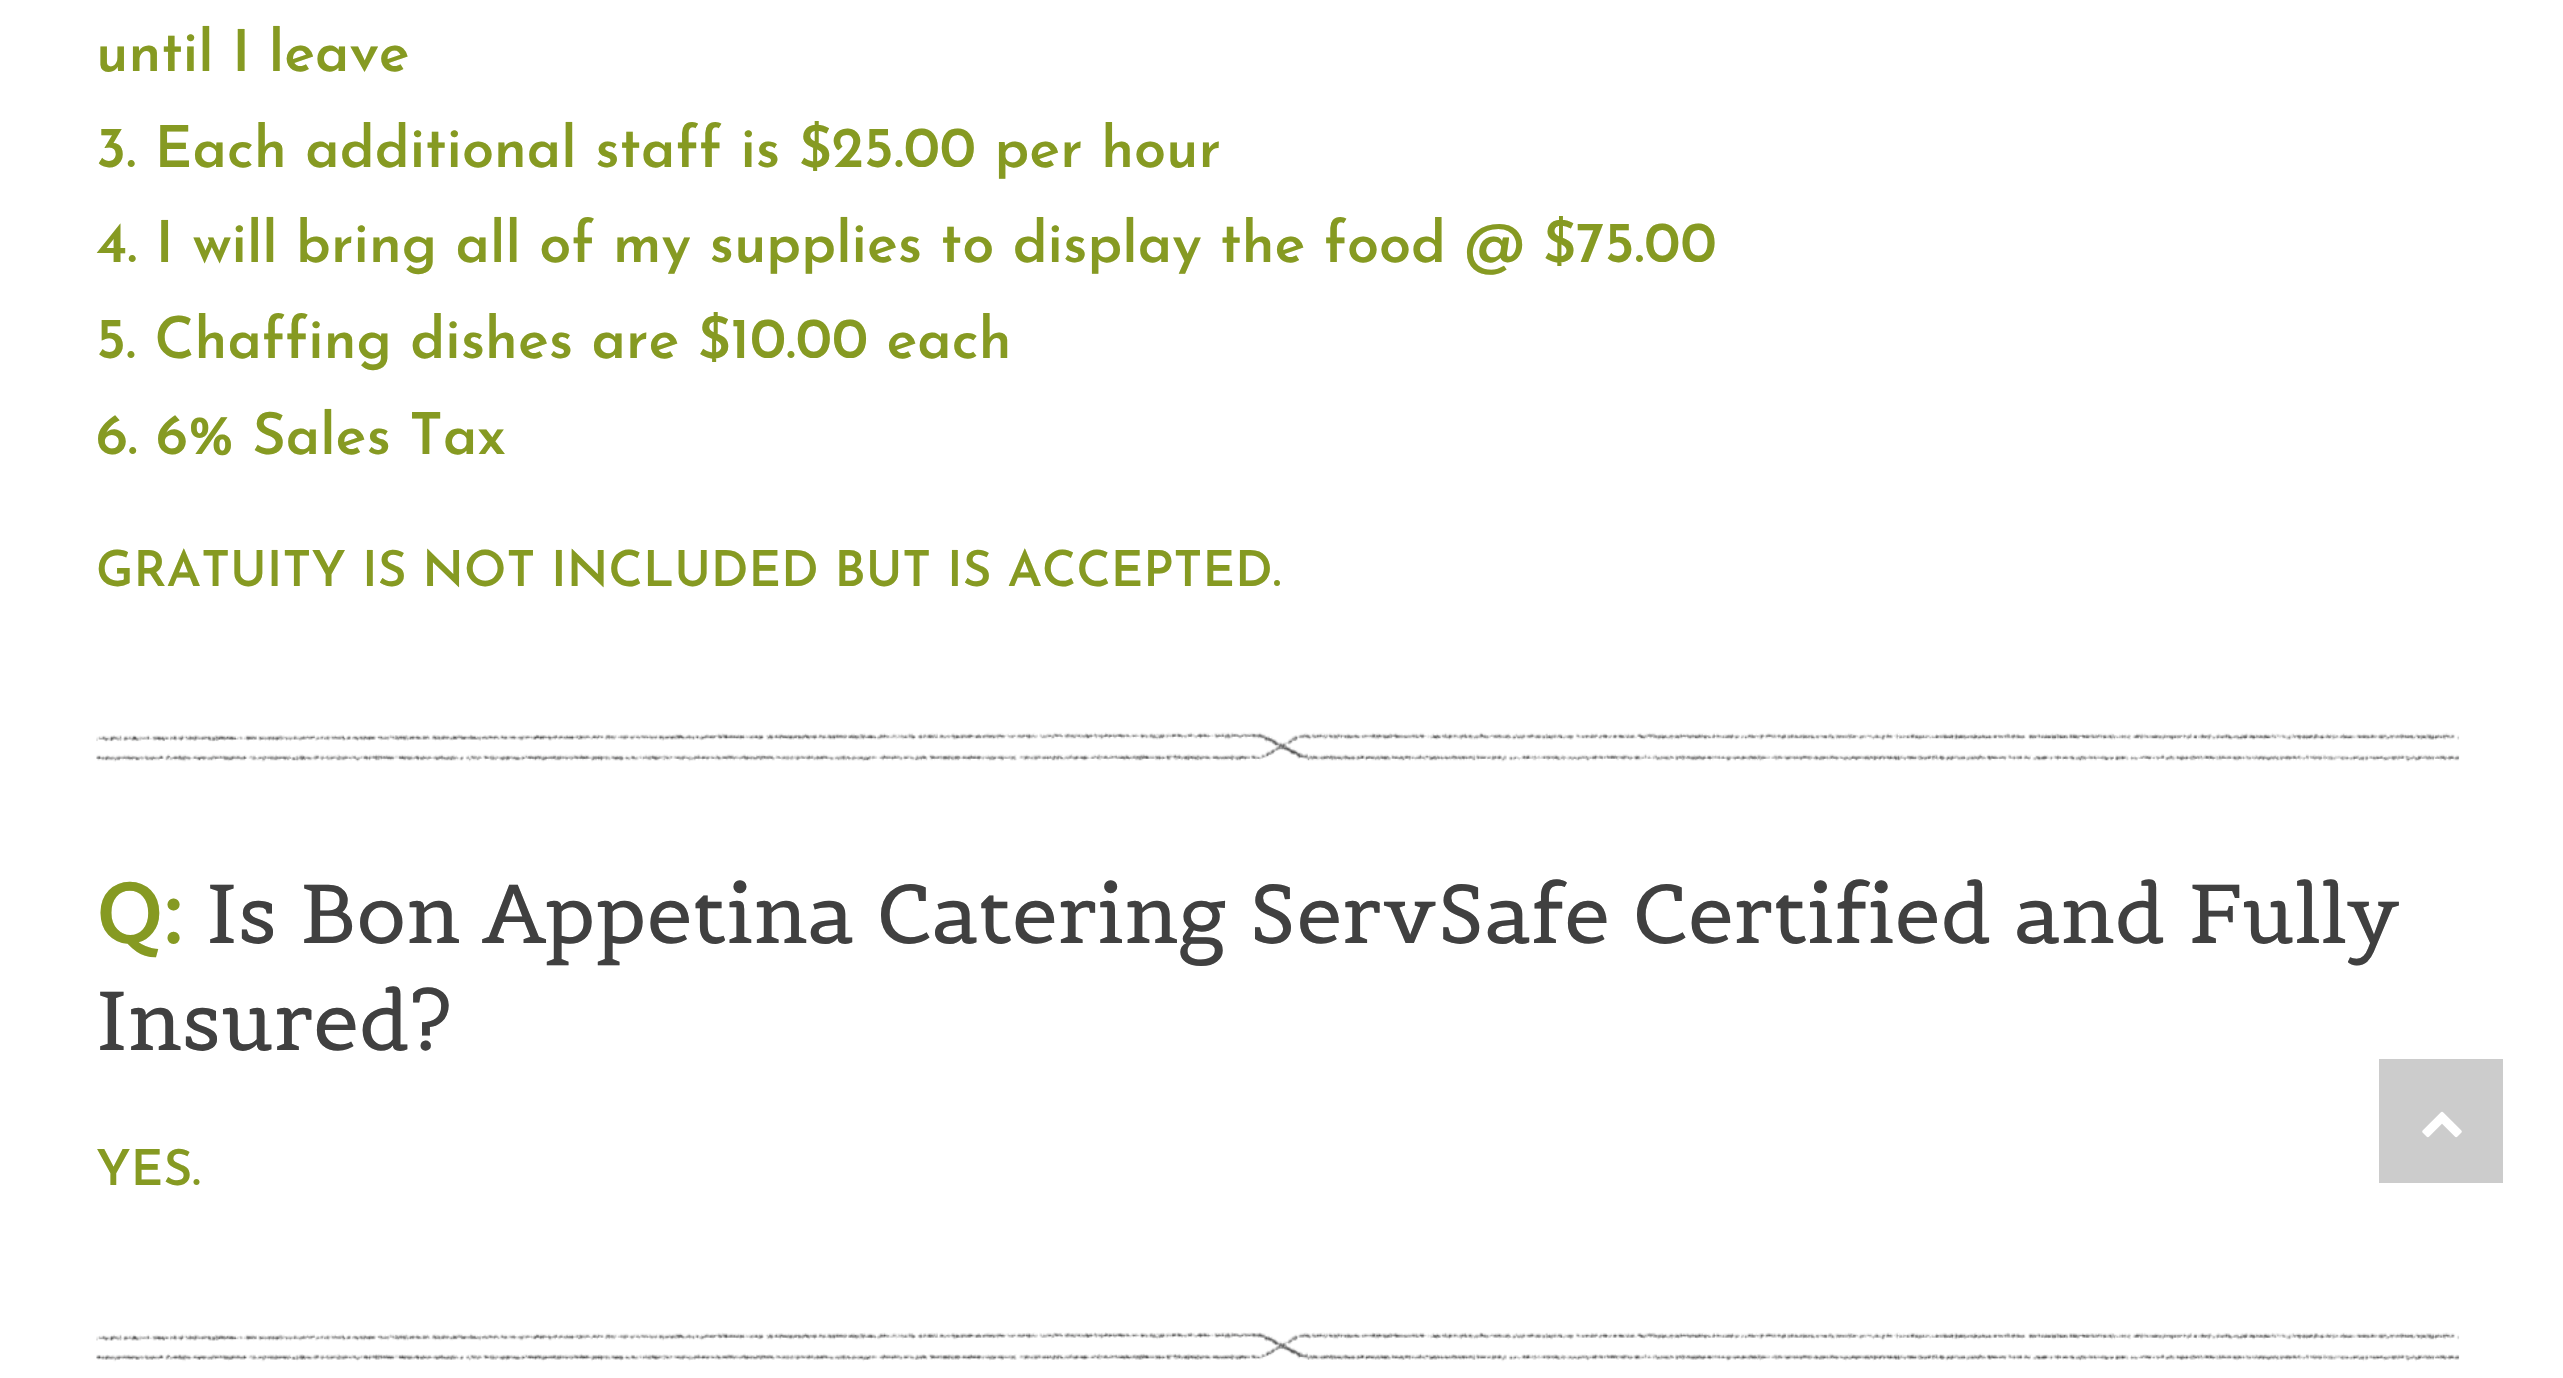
#include "include/core/SkBlurTypes.h"
#include "include/core/SkCanvas.h"
#include "include/core/SkData.h"
#include "include/core/SkFont.h"
#include "include/core/SkFontMgr.h"
#include "include/core/SkImage.h"
#include "include/core/SkMaskFilter.h"
#include "include/core/SkPaint.h"
#include "include/core/SkPathBuilder.h"
#include "include/core/SkTextBlob.h"
#include "include/effects/SkDashPathEffect.h"
#include "include/effects/SkGradientShader.h"
#include "include/utils/SkParsePath.h"

extern sk_sp<SkFontMgr> fontMgr;

void draw(SkCanvas* canvas) {
  SkPaint p;
  p.setAntiAlias(true);
  canvas->clear(SK_ColorWHITE);
  canvas->drawImageRect(SkImages::DeferredFromEncodedData(SkData::MakeFromFileName("images/1.png")), SkRect::MakeLTRB(96, 732, 2460, 762), SkSamplingOptions());
  canvas->drawImageRect(SkImages::DeferredFromEncodedData(SkData::MakeFromFileName("images/2.png")), SkRect::MakeLTRB(96, 1332, 2460, 1362), SkSamplingOptions());
  p.setColor(SkColorSetRGB(204, 204, 204));
  canvas->drawRect(SkRect::MakeLTRB(2379, 1059, 2503, 1183), p);
  canvas->drawImageRect(SkImages::DeferredFromEncodedData(SkData::MakeFromFileName("images/3.png")), SkRect::MakeLTRB(2422, 1111, 2462, 1138), SkSamplingOptions());
  SkFont font1(fontMgr->matchFamilyStyle("Josefin Sans", SkFontStyle(600, SkFontStyle::kNormal_Width, SkFontStyle::kUpright_Slant)), 57.75f);
  font1.setSubpixel(true);
  p.setColor(SkColorSetRGB(134, 154, 34));
  canvas->drawString("until I leave", 96, 71, font1, p);
  canvas->drawString("3. Each additional staff is $25.00 per hour", 96, 167, font1, p);
  canvas->drawString("4. I will bring all of my supplies to display the food @ $75.00", 96, 262, font1, p);
  canvas->drawString("5. Chaffing dishes are $10.00 each", 96, 358, font1, p);
  canvas->drawString("6. 6% Sales Tax", 96, 454, font1, p);
  SkFont font2(fontMgr->matchFamilyStyle("Josefin Sans", SkFontStyle(600, SkFontStyle::kNormal_Width, SkFontStyle::kUpright_Slant)), 49.5f);
  font2.setSubpixel(true);
  canvas->drawString("GRATUITY IS NOT INCLUDED BUT IS ACCEPTED.", 96, 586, font2, p);
  SkFont font3(fontMgr->matchFamilyStyle("Belgrano", SkFontStyle::Bold()), 82.5f);
  font3.setSubpixel(true);
  canvas->drawString("Q:", 96, 943, font3, p);
  SkFont font4(fontMgr->matchFamilyStyle("Belgrano", SkFontStyle::Normal()), 82.5f);
  font4.setSubpixel(true);
  p.setColor(SkColorSetRGB(64, 64, 64));
  canvas->drawString("Is Bon Appetina Catering ServSafe Certified and Fully", 206, 943, font4, p);
  canvas->drawString("Insured?", 96, 1050, font4, p);
  p.setColor(SkColorSetRGB(134, 154, 34));
  canvas->drawString("YES.", 96, 1185, font2, p);
}
